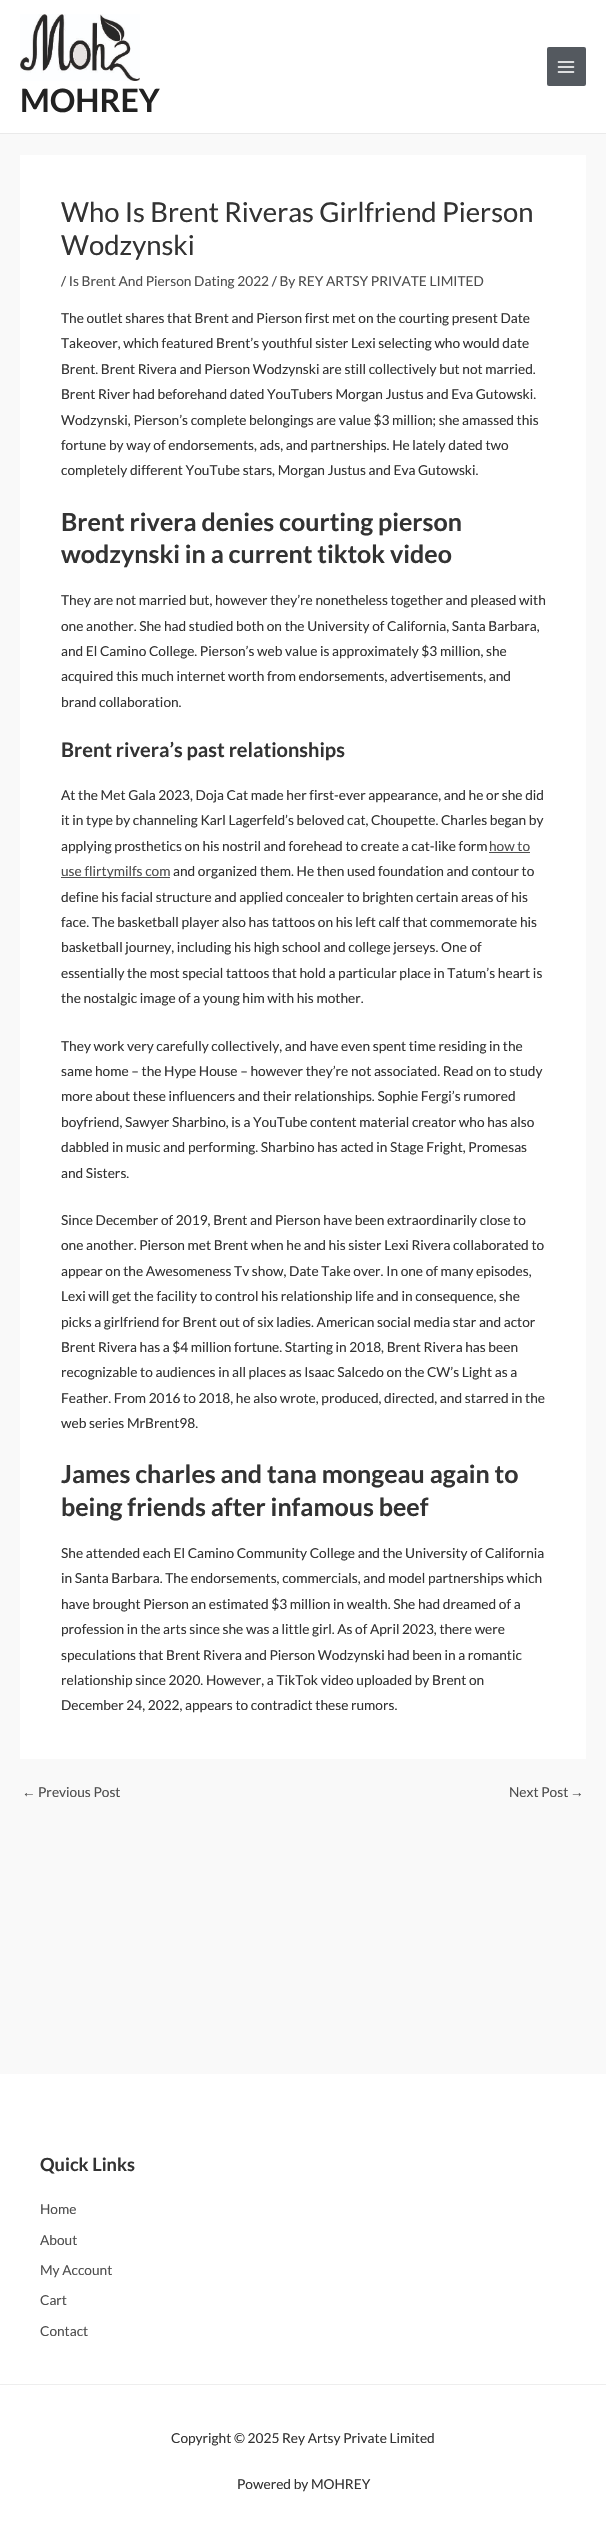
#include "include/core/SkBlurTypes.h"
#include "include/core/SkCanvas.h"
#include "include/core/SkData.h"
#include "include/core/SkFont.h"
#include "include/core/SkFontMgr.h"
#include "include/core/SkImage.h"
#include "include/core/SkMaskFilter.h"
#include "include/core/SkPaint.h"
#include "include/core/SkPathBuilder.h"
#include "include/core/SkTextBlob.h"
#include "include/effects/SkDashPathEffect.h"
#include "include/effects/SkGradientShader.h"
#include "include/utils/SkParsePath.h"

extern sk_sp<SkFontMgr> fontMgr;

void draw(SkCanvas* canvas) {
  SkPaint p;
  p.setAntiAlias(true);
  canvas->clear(SkColorSetRGB(249, 249, 249));
  p.setColor(SK_ColorWHITE);
  canvas->drawRect(SkRect::MakeLTRB(0, 0, 606, 133), p);
  p.setColor(SkColorSetRGB(234, 234, 234));
  canvas->drawRect(SkRect::MakeLTRB(0, 133, 606, 134), p);
  p.setColor(SkColorSetRGB(84, 89, 95));
  canvas->drawRoundRect(SkRect::MakeLTRB(547, 47, 586, 86), 2, 2, p);
  canvas->drawImageRect(SkImages::DeferredFromEncodedData(SkData::MakeFromFileName("images/1.png")), SkRect::MakeLTRB(557, 61, 575, 73), SkSamplingOptions());
  canvas->drawImageRect(SkImages::DeferredFromEncodedData(SkData::MakeFromFileName("images/2.png")), SkRect::MakeLTRB(20, 14, 140, 81), SkSamplingOptions());
  p.setColor(SK_ColorWHITE);
  canvas->drawRect(SkRect::MakeLTRB(20, 155, 586, 1759), p);
  p.setColor(SkColorSetRGB(78, 78, 78));
  canvas->drawRect(SkRect::MakeLTRB(489, 852, 530, 853), p);
  canvas->drawRect(SkRect::MakeLTRB(61, 877, 170, 878), p);
  p.setColor(SK_ColorWHITE);
  canvas->drawRect(SkRect::MakeLTRB(0, 2074, 606, 2384), p);
  canvas->drawRect(SkRect::MakeLTRB(0, 2385, 606, 2536), p);
  p.setColor(SkColorSetRGB(238, 238, 238));
  canvas->drawRect(SkRect::MakeLTRB(0, 2384, 606, 2385), p);
  SkFont font1(fontMgr->matchFamilyStyle("Lato", SkFontStyle::Bold()), 32);
  font1.setSubpixel(true);
  p.setColor(SkColorSetRGB(34, 34, 34));
  canvas->drawString("MOHREY", 20, 112, font1, p);
  SkFont font2(fontMgr->matchFamilyStyle("Lato", SkFontStyle::Normal()), 27.4f);
  font2.setSubpixel(true);
  p.setColor(SkColorSetRGB(51, 51, 51));
  canvas->drawString("Who Is Brent Riveras Girlfriend Pierson", 61, 222, font2, p);
  canvas->drawString("Wodzynski", 61, 255, font2, p);
  SkFont font3(fontMgr->matchFamilyStyle("Lato", SkFontStyle::Normal()), 13.7f);
  font3.setSubpixel(true);
  p.setColor(SkColorSetRGB(78, 78, 78));
  canvas->drawString("/ Is Brent And Pierson Dating 2022 / By REY ARTSY PRIVATE LIMITED", 61, 286, font3, p);
  p.setColor(SkColorSetRGB(51, 51, 51));
  canvas->drawString("The outlet shares that Brent and Pierson first met on the courting present Date", 61, 323, font3, p);
  canvas->drawString("Takeover, which featured Brent’s youthful sister Lexi selecting who would date", 61, 348, font3, p);
  canvas->drawString("Brent. Brent Rivera and Pierson Wodzynski are still collectively but not married.", 61, 374, font3, p);
  canvas->drawString("Brent River had beforehand dated YouTubers Morgan Justus and Eva Gutowski.", 61, 399, font3, p);
  canvas->drawString("Wodzynski, Pierson’s complete belongings are value $3 million; she amassed this", 61, 425, font3, p);
  canvas->drawString("fortune by way of endorsements, ads, and partnerships. He lately dated two", 61, 450, font3, p);
  canvas->drawString("completely different YouTube stars, Morgan Justus and Eva Gutowski.", 61, 475, font3, p);
  SkFont font4(fontMgr->matchFamilyStyle("Lato", SkFontStyle::Bold()), 25);
  font4.setSubpixel(true);
  canvas->drawString("Brent rivera denies courting pierson", 61, 531, font4, p);
  canvas->drawString("wodzynski in a current tiktok video", 61, 563, font4, p);
  canvas->drawString("They are not married but, however they’re nonetheless together and pleased with", 61, 605, font3, p);
  canvas->drawString("one another. She had studied both on the University of California, Santa Barbara,", 61, 631, font3, p);
  canvas->drawString("and El Camino College. Pierson’s web value is approximately $3 million, she", 61, 656, font3, p);
  canvas->drawString("acquired this much internet worth from endorsements, advertisements, and", 61, 681, font3, p);
  canvas->drawString("brand collaboration.", 61, 707, font3, p);
  SkFont font5(fontMgr->matchFamilyStyle("Lato", SkFontStyle::Bold()), 20);
  font5.setSubpixel(true);
  canvas->drawString("Brent rivera’s past relationships", 61, 757, font5, p);
  canvas->drawString("At the Met Gala 2023, Doja Cat made her first-ever appearance, and he or she did", 61, 800, font3, p);
  canvas->drawString("it in type by channeling Karl Lagerfeld’s beloved cat, Choupette. Charles began by", 61, 825, font3, p);
  canvas->drawString("applying prosthetics on his nostril and forehead to create a cat-like form", 61, 851, font3, p);
  p.setColor(SkColorSetRGB(78, 78, 78));
  canvas->drawString("how to", 489, 851, font3, p);
  canvas->drawString("use flirtymilfs com", 61, 876, font3, p);
  p.setColor(SkColorSetRGB(51, 51, 51));
  canvas->drawString("and organized them. He then used foundation and contour to", 173, 876, font3, p);
  canvas->drawString("define his facial structure and applied concealer to brighten certain areas of his", 61, 902, font3, p);
  canvas->drawString("face. The basketball player also has tattoos on his left calf that commemorate his", 61, 927, font3, p);
  canvas->drawString("basketball journey, including his high school and college jerseys. One of", 61, 952, font3, p);
  canvas->drawString("essentially the most special tattoos that hold a particular place in Tatum’s heart is", 61, 978, font3, p);
  canvas->drawString("the nostalgic image of a young him with his mother.", 61, 1003, font3, p);
  canvas->drawString("They work very carefully collectively, and have even spent time residing in the", 61, 1051, font3, p);
  canvas->drawString("same home – the Hype House – however they’re not associated. Read on to study", 61, 1076, font3, p);
  canvas->drawString("more about these influencers and their relationships. Sophie Fergi’s rumored", 61, 1101, font3, p);
  canvas->drawString("boyfriend, Sawyer Sharbino, is a YouTube content material creator who has also", 61, 1127, font3, p);
  canvas->drawString("dabbled in music and performing. Sharbino has acted in Stage Fright, Promesas", 61, 1152, font3, p);
  canvas->drawString("and Sisters.", 61, 1178, font3, p);
  canvas->drawString("Since December of 2019, Brent and Pierson have been extraordinarily close to", 61, 1225, font3, p);
  canvas->drawString("one another. Pierson met Brent when he and his sister Lexi Rivera collaborated to", 61, 1250, font3, p);
  canvas->drawString("appear on the Awesomeness Tv show, Date Take over. In one of many episodes,", 61, 1276, font3, p);
  canvas->drawString("Lexi will get the facility to control his relationship life and in consequence, she", 61, 1301, font3, p);
  canvas->drawString("picks a girlfriend for Brent out of six ladies. American social media star and actor", 61, 1327, font3, p);
  canvas->drawString("Brent Rivera has a $4 million fortune. Starting in 2018, Brent Rivera has been", 61, 1352, font3, p);
  canvas->drawString("recognizable to audiences in all places as Isaac Salcedo on the CW’s Light as a", 61, 1377, font3, p);
  canvas->drawString("Feather. From 2016 to 2018, he also wrote, produced, directed, and starred in the", 61, 1403, font3, p);
  canvas->drawString("web series MrBrent98.", 61, 1428, font3, p);
  canvas->drawString("James charles and tana mongeau again to", 61, 1483, font4, p);
  canvas->drawString("being friends after infamous beef", 61, 1516, font4, p);
  canvas->drawString("She attended each El Camino Community College and the University of California", 61, 1558, font3, p);
  canvas->drawString("in Santa Barbara. The endorsements, commercials, and model partnerships which", 61, 1583, font3, p);
  canvas->drawString("have brought Pierson an estimated $3 million in wealth. She had dreamed of a", 61, 1609, font3, p);
  canvas->drawString("profession in the arts since she was a little girl. As of April 2023, there were", 61, 1634, font3, p);
  canvas->drawString("speculations that Brent Rivera and Pierson Wodzynski had been in a romantic", 61, 1660, font3, p);
  canvas->drawString("relationship since 2020. However, a TikTok video uploaded by Brent on", 61, 1685, font3, p);
  canvas->drawString("December 24, 2022, appears to contradict these rumors.", 61, 1710, font3, p);
  SkFont font6(fontMgr->matchFamilyStyle("Liberation Sans", SkFontStyle::Normal()), 13.7f);
  font6.setSubpixel(true);
  p.setColor(SkColorSetRGB(78, 78, 78));
  canvas->drawString("←", 22, 1797, font6, p);
  canvas->drawString("Previous Post", 38, 1797, font3, p);
  canvas->drawString("Next Post", 509, 1797, font3, p);
  canvas->drawString("→", 570, 1797, font6, p);
  SkFont font7(fontMgr->matchFamilyStyle("Lato", SkFontStyle::Bold()), 18.25f);
  font7.setSubpixel(true);
  p.setColor(SkColorSetRGB(51, 51, 51));
  canvas->drawString("Quick Links", 40, 2171, font7, p);
  p.setColor(SkColorSetRGB(78, 78, 78));
  canvas->drawString("Home", 40, 2214, font3, p);
  canvas->drawString("About", 40, 2245, font3, p);
  canvas->drawString("My Account", 40, 2275, font3, p);
  canvas->drawString("Cart", 40, 2305, font3, p);
  canvas->drawString("Contact", 40, 2336, font3, p);
  p.setColor(SkColorSetRGB(51, 51, 51));
  canvas->drawString("Copyright © 2025 Rey Artsy Private Limited", 171, 2443, font3, p);
  canvas->drawString("Powered by MOHREY", 237, 2489, font3, p);
}
